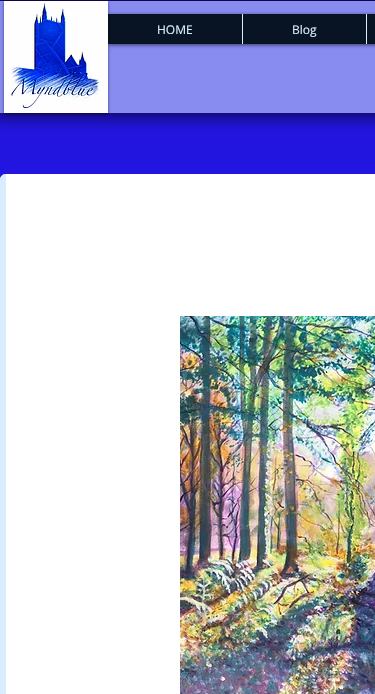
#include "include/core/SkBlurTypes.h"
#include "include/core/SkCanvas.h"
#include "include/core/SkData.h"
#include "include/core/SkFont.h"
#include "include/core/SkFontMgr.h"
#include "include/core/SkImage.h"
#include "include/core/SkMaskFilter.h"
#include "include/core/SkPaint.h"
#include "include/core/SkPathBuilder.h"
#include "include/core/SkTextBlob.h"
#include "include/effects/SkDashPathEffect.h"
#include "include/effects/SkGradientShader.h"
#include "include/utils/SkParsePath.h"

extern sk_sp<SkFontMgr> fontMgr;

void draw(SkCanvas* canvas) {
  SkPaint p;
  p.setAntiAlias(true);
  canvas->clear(SkColorSetRGB(35, 21, 224));
  p.setColor(SkColorSetARGB(179, 0, 0, 0));
  p.setMaskFilter(SkMaskFilter::MakeBlur(kNormal_SkBlurStyle, 9));
  canvas->drawRect(SkRect::MakeLTRB(-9, -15, 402, 115), p);
  p.setMaskFilter(nullptr);
  p.setColor(SkColorSetRGB(136, 140, 241));
  canvas->drawRect(SkRect::MakeLTRB(0, 1, 375, 113), p);
  p.setColor(SkColorSetARGB(153, 0, 0, 0));
  p.setMaskFilter(SkMaskFilter::MakeBlur(kNormal_SkBlurStyle, 2));
  canvas->drawRect(SkRect::MakeLTRB(108, 15, 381, 45), p);
  p.setMaskFilter(nullptr);
  p.setColor(SkColorSetRGB(8, 20, 35));
  canvas->drawRect(SkRect::MakeLTRB(108, 14, 375, 44), p);
  p.setColor(SkColorSetARGB(128, 0, 0, 0));
  p.setMaskFilter(SkMaskFilter::MakeBlur(kNormal_SkBlurStyle, 1.5f));
  canvas->drawRect(SkRect::MakeLTRB(4, 2, 108, 114), p);
  p.setMaskFilter(nullptr);
  canvas->drawImageRect(SkImages::DeferredFromEncodedData(SkData::MakeFromFileName("images/1.png")), SkRect::MakeLTRB(4, 1, 108, 113), SkSamplingOptions());
  p.setColor(SkColorSetRGB(218, 237, 255));
  canvas->drawRect(SkRect::MakeLTRB(242, 14, 243, 44), p);
  canvas->drawRect(SkRect::MakeLTRB(366, 14, 367, 44), p);
  canvas->drawRoundRect(SkRect::MakeLTRB(0.5f, 174.5f, 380.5f, 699.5f), 4.5f, 4.5f, p);
  p.setStyle(SkPaint::kStroke_Style);
  p.setStrokeWidth(1);
  canvas->drawRoundRect(SkRect::MakeLTRB(0.5f, 174.5f, 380.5f, 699.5f), 4.5f, 4.5f, p);
  p.setStyle(SkPaint::kFill_Style);
  p.setColor(SK_ColorWHITE);
  canvas->drawRect(SkRect::MakeLTRB(6, 174, 375, 694), p);
  canvas->drawImageRect(SkImages::DeferredFromEncodedData(SkData::MakeFromFileName("images/2.png")), SkRect::MakeLTRB(180, 316, 375, 694), SkSamplingOptions());
  SkFont font1(fontMgr->matchFamilyStyle("Open Sans", SkFontStyle::Normal()), 12);
  font1.setSubpixel(true);
  p.setColor(SkColorSetRGB(218, 237, 255));
  canvas->drawString("HOME", 157, 34, font1, p);
  canvas->drawString("Blog", 292, 34, font1, p);
}
